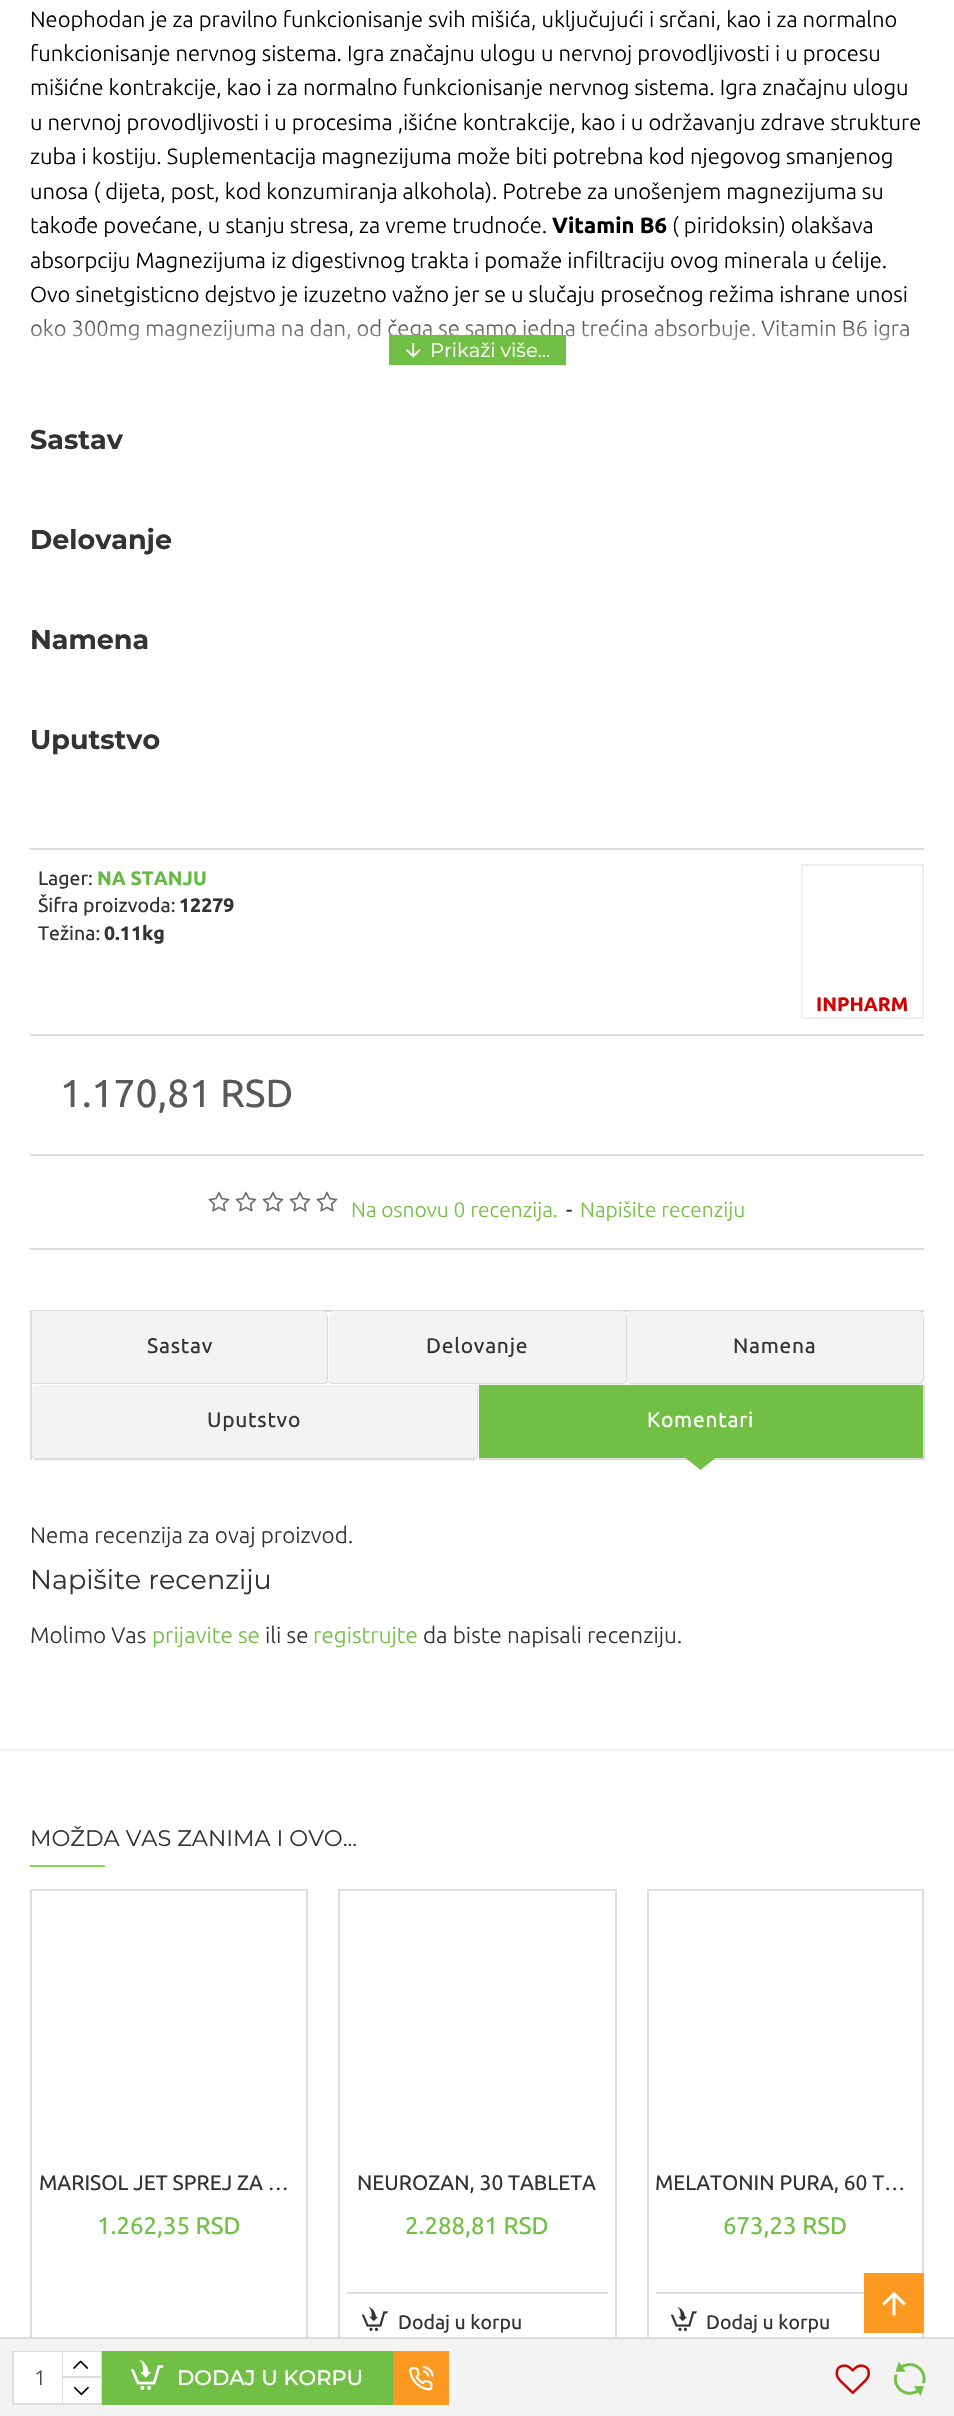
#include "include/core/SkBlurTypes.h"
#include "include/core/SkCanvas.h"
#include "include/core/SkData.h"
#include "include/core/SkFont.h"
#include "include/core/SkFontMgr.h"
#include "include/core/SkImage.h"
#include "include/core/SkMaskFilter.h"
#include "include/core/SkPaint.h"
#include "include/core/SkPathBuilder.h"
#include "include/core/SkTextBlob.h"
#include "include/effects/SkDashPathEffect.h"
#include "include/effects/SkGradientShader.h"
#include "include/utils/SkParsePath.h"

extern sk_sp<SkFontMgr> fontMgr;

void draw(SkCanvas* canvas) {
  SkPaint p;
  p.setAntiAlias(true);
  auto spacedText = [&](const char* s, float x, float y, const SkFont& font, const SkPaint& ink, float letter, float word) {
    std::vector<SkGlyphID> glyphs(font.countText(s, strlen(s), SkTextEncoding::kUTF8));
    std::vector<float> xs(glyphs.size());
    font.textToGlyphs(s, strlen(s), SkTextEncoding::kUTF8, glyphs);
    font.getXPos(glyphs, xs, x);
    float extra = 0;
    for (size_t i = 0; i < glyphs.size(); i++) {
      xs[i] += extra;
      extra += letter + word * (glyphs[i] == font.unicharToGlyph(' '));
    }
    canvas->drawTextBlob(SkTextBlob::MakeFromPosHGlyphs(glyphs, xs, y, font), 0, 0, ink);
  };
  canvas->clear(SK_ColorWHITE);
  p.setColor(SkColorSetRGB(221, 221, 221));
  canvas->drawRect(SkRect::MakeLTRB(30, 848, 924, 850), p);
  canvas->drawRect(SkRect::MakeLTRB(30, 1034, 924, 1036), p);
  p.setStyle(SkPaint::kStroke_Style);
  p.setStrokeWidth(2);
  p.setColor(SkColorSetRGB(238, 238, 238));
  canvas->drawRect(SkRect::MakeLTRB(802, 865, 923, 1018), p);
  p.setStyle(SkPaint::kFill_Style);
  p.setColor(SkColorSetRGB(221, 221, 221));
  canvas->drawRect(SkRect::MakeLTRB(30, 1154, 924, 1156), p);
  canvas->drawRect(SkRect::MakeLTRB(30, 1248, 924, 1250), p);
  canvas->drawImageRect(SkImages::DeferredFromEncodedData(SkData::MakeFromFileName("images/2.png")), SkRect::MakeLTRB(208, 1191, 230, 1212), SkSamplingOptions());
  canvas->drawImageRect(SkImages::DeferredFromEncodedData(SkData::MakeFromFileName("images/2.png")), SkRect::MakeLTRB(235, 1191, 257, 1212), SkSamplingOptions());
  canvas->drawImageRect(SkImages::DeferredFromEncodedData(SkData::MakeFromFileName("images/2.png")), SkRect::MakeLTRB(262, 1191, 284, 1212), SkSamplingOptions());
  canvas->drawImageRect(SkImages::DeferredFromEncodedData(SkData::MakeFromFileName("images/2.png")), SkRect::MakeLTRB(289, 1191, 311, 1212), SkSamplingOptions());
  canvas->drawImageRect(SkImages::DeferredFromEncodedData(SkData::MakeFromFileName("images/2.png")), SkRect::MakeLTRB(316, 1191, 338, 1212), SkSamplingOptions());
  p.setStyle(SkPaint::kStroke_Style);
  canvas->drawRect(SkRect::MakeLTRB(31, 1890, 307, 2387), p);
  canvas->drawRect(SkRect::MakeLTRB(339, 1890, 616, 2387), p);
  canvas->drawRect(SkRect::MakeLTRB(648, 1890, 923, 2387), p);
  p.setStyle(SkPaint::kFill_Style);
  p.setColor(SkColorSetRGB(243, 243, 243));
  canvas->drawRect(SkRect::MakeLTRB(0, 2339, 954, 2416), p);
  p.setColor(SkColorSetRGB(221, 221, 221));
  canvas->drawRect(SkRect::MakeLTRB(0, 2337, 954, 2339), p);
  p.setStyle(SkPaint::kStroke_Style);
  canvas->drawRect(SkRect::MakeLTRB(13, 2352, 101, 2404), p);
  p.setStyle(SkPaint::kFill_Style);
  p.setColor(SK_ColorWHITE);
  canvas->drawRect(SkRect::MakeLTRB(14, 2352, 62, 2403), p);
  p.setColor(SkColorSetRGB(221, 221, 221));
  canvas->drawRect(SkRect::MakeLTRB(62, 2352, 63, 2403), p);
  p.setColor(SK_ColorWHITE);
  canvas->drawRect(SkRect::MakeLTRB(63, 2352, 101, 2376), p);
  p.setColor(SkColorSetRGB(221, 221, 221));
  canvas->drawRect(SkRect::MakeLTRB(63, 2376, 101, 2378), p);
  canvas->drawImageRect(SkImages::DeferredFromEncodedData(SkData::MakeFromFileName("images/3.png")), SkRect::MakeLTRB(73, 2360, 89, 2369), SkSamplingOptions());
  p.setColor(SK_ColorWHITE);
  canvas->drawRect(SkRect::MakeLTRB(63, 2378, 101, 2403), p);
  canvas->drawImageRect(SkImages::DeferredFromEncodedData(SkData::MakeFromFileName("images/4.png")), SkRect::MakeLTRB(73, 2386, 89, 2396), SkSamplingOptions());
  p.setColor(SkColorSetRGB(113, 191, 68));
  canvas->drawRect(SkRect::MakeLTRB(102, 2351, 393, 2405), p);
  canvas->drawImageRect(SkImages::DeferredFromEncodedData(SkData::MakeFromFileName("images/5.png")), SkRect::MakeLTRB(130, 2360, 164, 2390), SkSamplingOptions());
  p.setColor(SkColorSetRGB(252, 153, 33));
  canvas->drawRect(SkRect::MakeLTRB(393, 2351, 449, 2405), p);
  canvas->drawImageRect(SkImages::DeferredFromEncodedData(SkData::MakeFromFileName("images/6.png")), SkRect::MakeLTRB(409, 2366, 434, 2391), SkSamplingOptions());
  canvas->drawImageRect(SkImages::DeferredFromEncodedData(SkData::MakeFromFileName("images/7.png")), SkRect::MakeLTRB(835, 2364, 870, 2394), SkSamplingOptions());
  canvas->drawImageRect(SkImages::DeferredFromEncodedData(SkData::MakeFromFileName("images/8.png")), SkRect::MakeLTRB(893, 2361, 926, 2396), SkSamplingOptions());
  p.setColor(SkColorSetRGB(221, 221, 221));
  canvas->drawRect(SkRect::MakeLTRB(30, 1310, 924, 1312), p);
  canvas->drawRect(SkRect::MakeLTRB(30, 1310, 32, 1460), p);
  p.setColor(SkColorSetARGB(13, 0, 0, 0));
  p.setMaskFilter(SkMaskFilter::MakeBlur(kNormal_SkBlurStyle, 1));
  canvas->drawRoundRect(SkRect::MakeLTRB(32, 1313, 329, 1386), 6, 6, p);
  p.setMaskFilter(nullptr);
  p.setColor(SK_ColorWHITE);
  canvas->drawPath(SkPathBuilder().moveTo(32, 1311).lineTo(322, 1311).cubicTo(325, 1311, 327, 1314, 327, 1317).lineTo(327, 1378).cubicTo(327, 1381, 325, 1383, 322, 1383).lineTo(32, 1383).close().detach(), p);
  p.setColor(SkColorSetRGB(221, 221, 221));
  canvas->drawPath(SkPathBuilder(SkPathFillType::kEvenOdd).moveTo(32, 1311).lineTo(322, 1311).cubicTo(326, 1311, 328, 1314, 328, 1317).lineTo(328, 1378).cubicTo(328, 1382, 326, 1384, 322, 1384).lineTo(32, 1384).close().moveTo(32, 1311).lineTo(322, 1311).cubicTo(325, 1311, 327, 1314, 327, 1317).lineTo(327, 1378).cubicTo(327, 1381, 325, 1383, 322, 1383).lineTo(32, 1383).close().detach(), p);
  p.setColor(SkColorSetARGB(13, 0, 0, 0));
  p.setMaskFilter(SkMaskFilter::MakeBlur(kNormal_SkBlurStyle, 1));
  canvas->drawRoundRect(SkRect::MakeLTRB(329, 1313, 627, 1386), 6, 6, p);
  p.setMaskFilter(nullptr);
  p.setColor(SK_ColorWHITE);
  canvas->drawPath(SkPathBuilder().moveTo(334, 1311).lineTo(621, 1311).cubicTo(623, 1311, 626, 1314, 626, 1317).lineTo(626, 1378).cubicTo(626, 1381, 623, 1383, 621, 1383).lineTo(334, 1383).cubicTo(331, 1383, 328, 1381, 328, 1378).lineTo(328, 1317).cubicTo(328, 1314, 331, 1311, 334, 1311).close().detach(), p);
  p.setColor(SkColorSetRGB(221, 221, 221));
  canvas->drawPath(SkPathBuilder(SkPathFillType::kEvenOdd).moveTo(334, 1311).lineTo(621, 1311).cubicTo(624, 1311, 627, 1314, 627, 1317).lineTo(627, 1378).cubicTo(627, 1382, 624, 1384, 621, 1384).lineTo(334, 1384).cubicTo(331, 1384, 328, 1382, 328, 1378).lineTo(328, 1317).cubicTo(328, 1314, 331, 1311, 334, 1311).close().moveTo(334, 1311).lineTo(621, 1311).cubicTo(623, 1311, 626, 1314, 626, 1317).lineTo(626, 1378).cubicTo(626, 1381, 623, 1383, 621, 1383).lineTo(334, 1383).cubicTo(331, 1383, 328, 1381, 328, 1378).lineTo(328, 1317).cubicTo(328, 1314, 331, 1311, 334, 1311).close().detach(), p);
  p.setColor(SkColorSetARGB(13, 0, 0, 0));
  p.setMaskFilter(SkMaskFilter::MakeBlur(kNormal_SkBlurStyle, 1));
  canvas->drawRoundRect(SkRect::MakeLTRB(32, 1386, 479, 1461), 6, 6, p);
  p.setMaskFilter(nullptr);
  p.setColor(SkColorSetRGB(243, 243, 243));
  canvas->drawPath(SkPathBuilder().moveTo(32, 1311).lineTo(321, 1311).cubicTo(324.5f, 1311, 327, 1313.5f, 327, 1317).lineTo(327, 1377).cubicTo(327, 1380.5f, 324.5f, 1383, 321, 1383).lineTo(32, 1383).close().detach(), p);
  p.setColor(SkColorSetARGB(13, 0, 0, 0));
  p.setMaskFilter(SkMaskFilter::MakeBlur(kNormal_SkBlurStyle, 1));
  canvas->drawRoundRect(SkRect::MakeLTRB(627, 1313, 924, 1386), 6, 6, p);
  p.setMaskFilter(nullptr);
  p.setColor(SkColorSetRGB(243, 243, 243));
  canvas->drawRoundRect(SkRect::MakeLTRB(329, 1311, 626, 1383), 6, 6, p);
  p.setColor(SK_ColorWHITE);
  canvas->drawPath(SkPathBuilder().moveTo(633, 1311).lineTo(918, 1311).cubicTo(920, 1311, 922, 1314, 922, 1317).lineTo(922, 1378).cubicTo(922, 1381, 920, 1383, 918, 1383).lineTo(633, 1383).cubicTo(630, 1383, 627, 1381, 627, 1378).lineTo(627, 1317).cubicTo(627, 1314, 630, 1311, 633, 1311).close().detach(), p);
  p.setColor(SkColorSetRGB(221, 221, 221));
  canvas->drawPath(SkPathBuilder(SkPathFillType::kEvenOdd).moveTo(633, 1311).lineTo(918, 1311).cubicTo(921, 1311, 924, 1314, 924, 1317).lineTo(924, 1378).cubicTo(924, 1382, 921, 1384, 918, 1384).lineTo(633, 1384).cubicTo(630, 1384, 627, 1382, 627, 1378).lineTo(627, 1317).cubicTo(627, 1314, 630, 1311, 633, 1311).close().moveTo(633, 1311).lineTo(918, 1311).cubicTo(920, 1311, 922, 1314, 922, 1317).lineTo(922, 1378).cubicTo(922, 1381, 920, 1383, 918, 1383).lineTo(633, 1383).cubicTo(630, 1383, 627, 1381, 627, 1378).lineTo(627, 1317).cubicTo(627, 1314, 630, 1311, 633, 1311).close().detach(), p);
  p.setColor(SkColorSetRGB(243, 243, 243));
  canvas->drawRoundRect(SkRect::MakeLTRB(627, 1311, 923, 1383), 6, 6, p);
  p.setColor(SK_ColorWHITE);
  canvas->drawPath(SkPathBuilder().moveTo(38, 1384).lineTo(472, 1384).cubicTo(475, 1384, 477, 1387, 477, 1390).lineTo(477, 1454).cubicTo(477, 1456, 475, 1458, 472, 1458).lineTo(38, 1458).cubicTo(34, 1458, 32, 1456, 32, 1454).lineTo(32, 1390).cubicTo(32, 1387, 34, 1384, 38, 1384).close().detach(), p);
  p.setColor(SkColorSetRGB(221, 221, 221));
  canvas->drawPath(SkPathBuilder(SkPathFillType::kEvenOdd).moveTo(38, 1384).lineTo(472, 1384).cubicTo(476, 1384, 478, 1387, 478, 1390).lineTo(478, 1454).cubicTo(478, 1457, 476, 1460, 472, 1460).lineTo(38, 1460).cubicTo(34, 1460, 32, 1457, 32, 1454).lineTo(32, 1390).cubicTo(32, 1387, 34, 1384, 38, 1384).close().moveTo(38, 1384).lineTo(472, 1384).cubicTo(475, 1384, 477, 1387, 477, 1390).lineTo(477, 1454).cubicTo(477, 1456, 475, 1458, 472, 1458).lineTo(38, 1458).cubicTo(34, 1458, 32, 1456, 32, 1454).lineTo(32, 1390).cubicTo(32, 1387, 34, 1384, 38, 1384).close().detach(), p);
  p.setColor(SkColorSetRGB(243, 243, 243));
  canvas->drawRoundRect(SkRect::MakeLTRB(32, 1385, 477, 1458), 6, 6, p);
  p.setColor(SkColorSetRGB(221, 221, 221));
  canvas->drawRect(SkRect::MakeLTRB(923, 1385, 925, 1460), p);
  canvas->drawRect(SkRect::MakeLTRB(479, 1458, 924, 1460), p);
  p.setColor(SkColorSetRGB(113, 191, 68));
  canvas->drawRect(SkRect::MakeLTRB(479, 1385, 923, 1458), p);
  canvas->drawPath(SkPathBuilder().moveTo(685.5f, 1458).lineTo(715.5f, 1458).lineTo(700.5f, 1470).close().detach(), p);
  p.setColor(SkColorSetRGB(243, 243, 243));
  canvas->drawRect(SkRect::MakeLTRB(0, 1749, 954, 1751), p);
  p.setColor(SkColorSetRGB(132, 218, 83));
  canvas->drawRect(SkRect::MakeLTRB(30, 1865, 105, 1867), p);
  p.setColor(SkColorSetRGB(221, 221, 221));
  canvas->drawRect(SkRect::MakeLTRB(347, 2292, 608, 2294), p);
  canvas->drawImageRect(SkImages::DeferredFromEncodedData(SkData::MakeFromFileName("images/9.png")), SkRect::MakeLTRB(361, 2307, 388, 2331), SkSamplingOptions());
  canvas->drawRect(SkRect::MakeLTRB(656, 2292, 864, 2294), p);
  canvas->drawImageRect(SkImages::DeferredFromEncodedData(SkData::MakeFromFileName("images/9.png")), SkRect::MakeLTRB(670, 2307, 697, 2331), SkSamplingOptions());
  p.setColor(SkColorSetRGB(252, 153, 33));
  canvas->drawRect(SkRect::MakeLTRB(864, 2273, 924, 2333), p);
  canvas->drawImageRect(SkImages::DeferredFromEncodedData(SkData::MakeFromFileName("images/10.png")), SkRect::MakeLTRB(882, 2291, 906, 2316), SkSamplingOptions());
  SkFont font1(fontMgr->matchFamilyStyle("Ubuntu", SkFontStyle(300, SkFontStyle::kNormal_Width, SkFontStyle::kUpright_Slant)), 22);
  font1.setSubpixel(true);
  p.setColor(SK_ColorBLACK);
  canvas->drawString("Neophodan je za pravilno funkcionisanje svih mišića, uključujući i srčani, kao i za normalno", 30, 27, font1, p);
  canvas->drawString("funkcionisanje nervnog sistema. Igra značajnu ulogu u nervnoj provodljivosti i u procesu", 30, 61, font1, p);
  canvas->drawString("mišićne kontrakcije, kao i za normalno funkcionisanje nervnog sistema. Igra značajnu ulogu", 30, 95, font1, p);
  canvas->drawString("u nervnoj provodljivosti i u procesima ,išićne kontrakcije, kao i u održavanju zdrave strukture", 30, 130, font1, p);
  canvas->drawString("zuba i kostiju. Suplementacija magnezijuma može biti potrebna kod njegovog smanjenog", 30, 164, font1, p);
  canvas->drawString("unosa ( dijeta, post, kod konzumiranja alkohola). Potrebe za unošenjem magnezijuma su", 30, 199, font1, p);
  canvas->drawString("takođe povećane, u stanju stresa, za vreme trudnoće.", 30, 233, font1, p);
  SkFont font2(fontMgr->matchFamilyStyle("Ubuntu", SkFontStyle::Bold()), 22);
  font2.setSubpixel(true);
  canvas->drawString("Vitamin B6", 552, 233, font2, p);
  canvas->drawString("( piridoksin) olakšava", 672, 233, font1, p);
  canvas->drawString("absorpciju Magnezijuma iz digestivnog trakta i pomaže infiltraciju ovog minerala u ćelije.", 30, 268, font1, p);
  canvas->drawString("Ovo sinetgisticno dejstvo je izuzetno važno jer se u slučaju prosečnog režima ishrane unosi", 30, 302, font1, p);
  canvas->drawString("oko 300mg magnezijuma na dan, od čega se samo jedna trećina absorbuje. Vitamin B6 igra", 30, 336, font1, p);
  {
    const SkColor colors[] = {SkColorSetARGB(0, 255, 255, 255), SK_ColorWHITE};
    const float stops[] = {0, 1};
    const SkPoint ends[] = {{477, 304}, {477, 365}};
    p.setShader(SkGradientShader::MakeLinear(ends, colors, stops, 2, SkTileMode::kClamp));
    p.setAlpha(255);
  }
  canvas->drawRect(SkRect::MakeLTRB(31, 305, 908, 341), p);
  p.setShader(nullptr);
  p.setColor(SkColorSetRGB(113, 191, 68));
  canvas->drawRect(SkRect::MakeLTRB(389, 335, 566, 365), p);
  canvas->drawImageRect(SkImages::DeferredFromEncodedData(SkData::MakeFromFileName("images/1.png")), SkRect::MakeLTRB(406, 343, 421, 358), SkSamplingOptions());
  SkFont font3(fontMgr->matchFamilyStyle("Montserrat", SkFontStyle::Normal()), 19.5f);
  font3.setSubpixel(true);
  p.setColor(SK_ColorWHITE);
  canvas->drawString("Prikaži više...", 430, 357, font3, p);
  SkFont font4(fontMgr->matchFamilyStyle("Montserrat", SkFontStyle::Bold()), 27);
  font4.setSubpixel(true);
  p.setColor(SkColorSetRGB(51, 51, 51));
  canvas->drawString("Sastav", 30, 449, font4, p);
  canvas->drawString("Delovanje", 30, 549, font4, p);
  canvas->drawString("Namena", 30, 649, font4, p);
  canvas->drawString("Uputstvo", 30, 749, font4, p);
  SkFont font5(fontMgr->matchFamilyStyle("Ubuntu", SkFontStyle::Normal()), 19.5f);
  font5.setSubpixel(true);
  canvas->drawString("Lager:", 38, 885, font5, p);
  SkFont font6(fontMgr->matchFamilyStyle("Ubuntu", SkFontStyle::Bold()), 19.5f);
  font6.setSubpixel(true);
  p.setColor(SkColorSetRGB(100, 187, 67));
  canvas->drawString("NA STANJU", 97, 885, font6, p);
  p.setColor(SkColorSetRGB(51, 51, 51));
  canvas->drawString("Šifra proizvoda:", 38, 912, font5, p);
  canvas->drawString("12279", 179, 912, font6, p);
  canvas->drawString("Težina:", 38, 940, font5, p);
  canvas->drawString("0.11kg", 104, 940, font6, p);
  p.setColor(SkColorSetRGB(210, 0, 0));
  canvas->drawString("INPHARM", 816, 1011, font6, p);
  SkFont font7(fontMgr->matchFamilyStyle("Ubuntu", SkFontStyle::Normal()), 39);
  font7.setSubpixel(true);
  p.setColor(SkColorSetRGB(88, 88, 90));
  canvas->drawString("1.170,81 RSD", 60, 1107, font7, p);
  SkFont font8(fontMgr->matchFamilyStyle("Ubuntu", SkFontStyle(300, SkFontStyle::kNormal_Width, SkFontStyle::kUpright_Slant)), 21);
  font8.setSubpixel(true);
  p.setColor(SkColorSetRGB(113, 191, 68));
  canvas->drawString("Na osnovu 0 recenzija.", 351, 1217, font8, p);
  SkFont font9(fontMgr->matchFamilyStyle("Ubuntu", SkFontStyle::Normal()), 21);
  font9.setSubpixel(true);
  p.setColor(SkColorSetRGB(51, 51, 51));
  canvas->drawString("-", 566, 1217, font9, p);
  p.setColor(SkColorSetRGB(113, 191, 68));
  canvas->drawString("Napišite recenziju", 580, 1217, font8, p);
  p.setColor(SkColorSetRGB(58, 71, 84));
  canvas->drawString("1", 34, 2385, font8, p);
  SkFont font10(fontMgr->matchFamilyStyle("Montserrat", SkFontStyle(500, SkFontStyle::kNormal_Width, SkFontStyle::kUpright_Slant)), 21);
  font10.setSubpixel(true);
  p.setColor(SK_ColorWHITE);
  canvas->drawString("DODAJ U KORPU", 177, 2385, font10, p);
  p.setColor(SkColorSetRGB(51, 51, 51));
  spacedText("Sastav", 147, 1353, font9, p, 0.75f, 0);
  spacedText("Delovanje", 426, 1353, font9, p, 0.75f, 0);
  spacedText("Namena", 733, 1353, font9, p, 0.75f, 0);
  spacedText("Uputstvo", 207, 1427, font9, p, 0.75f, 0);
  p.setColor(SK_ColorWHITE);
  spacedText("Komentari", 647, 1427, font9, p, 0.75f, 0);
  SkFont font11(fontMgr->matchFamilyStyle("Ubuntu", SkFontStyle(300, SkFontStyle::kNormal_Width, SkFontStyle::kUpright_Slant)), 22.5f);
  font11.setSubpixel(true);
  p.setColor(SkColorSetRGB(51, 51, 51));
  canvas->drawString("Nema recenzija za ovaj proizvod.", 30, 1543, font11, p);
  SkFont font12(fontMgr->matchFamilyStyle("Montserrat", SkFontStyle::Normal()), 27);
  font12.setSubpixel(true);
  canvas->drawString("Napišite recenziju", 30, 1589, font12, p);
  canvas->drawString("Molimo Vas", 30, 1643, font11, p);
  p.setColor(SkColorSetRGB(113, 191, 68));
  canvas->drawString("prijavite se", 152, 1643, font11, p);
  p.setColor(SkColorSetRGB(51, 51, 51));
  canvas->drawString("ili se", 265, 1643, font11, p);
  p.setColor(SkColorSetRGB(113, 191, 68));
  canvas->drawString("registrujte", 313, 1643, font11, p);
  p.setColor(SkColorSetRGB(51, 51, 51));
  canvas->drawString("da biste napisali recenziju.", 423, 1643, font11, p);
  SkFont font13(fontMgr->matchFamilyStyle("Montserrat", SkFontStyle::Normal()), 22.5f);
  font13.setSubpixel(true);
  canvas->drawString("MOŽDA VAS ZANIMA I OVO...", 30, 1846, font13, p);
  canvas->drawString("MARISOL JET SPREJ ZA …", 39, 2190, font9, p);
  SkFont font14(fontMgr->matchFamilyStyle("Ubuntu", SkFontStyle::Normal()), 24);
  font14.setSubpixel(true);
  p.setColor(SkColorSetRGB(113, 191, 68));
  canvas->drawString("1.262,35 RSD", 97, 2234, font14, p);
  p.setColor(SkColorSetRGB(51, 51, 51));
  canvas->drawString("NEUROZAN, 30 TABLETA", 357, 2190, font9, p);
  p.setColor(SkColorSetRGB(113, 191, 68));
  canvas->drawString("2.288,81 RSD", 405, 2234, font14, p);
  p.setColor(SkColorSetRGB(51, 51, 51));
  canvas->drawString("Dodaj u korpu", 398, 2329, font5, p);
  canvas->drawString("MELATONIN PURA, 60 T…", 655, 2190, font9, p);
  p.setColor(SkColorSetRGB(113, 191, 68));
  canvas->drawString("673,23 RSD", 723, 2234, font14, p);
  p.setColor(SkColorSetRGB(51, 51, 51));
  canvas->drawString("Dodaj u korpu", 706, 2329, font5, p);
}
